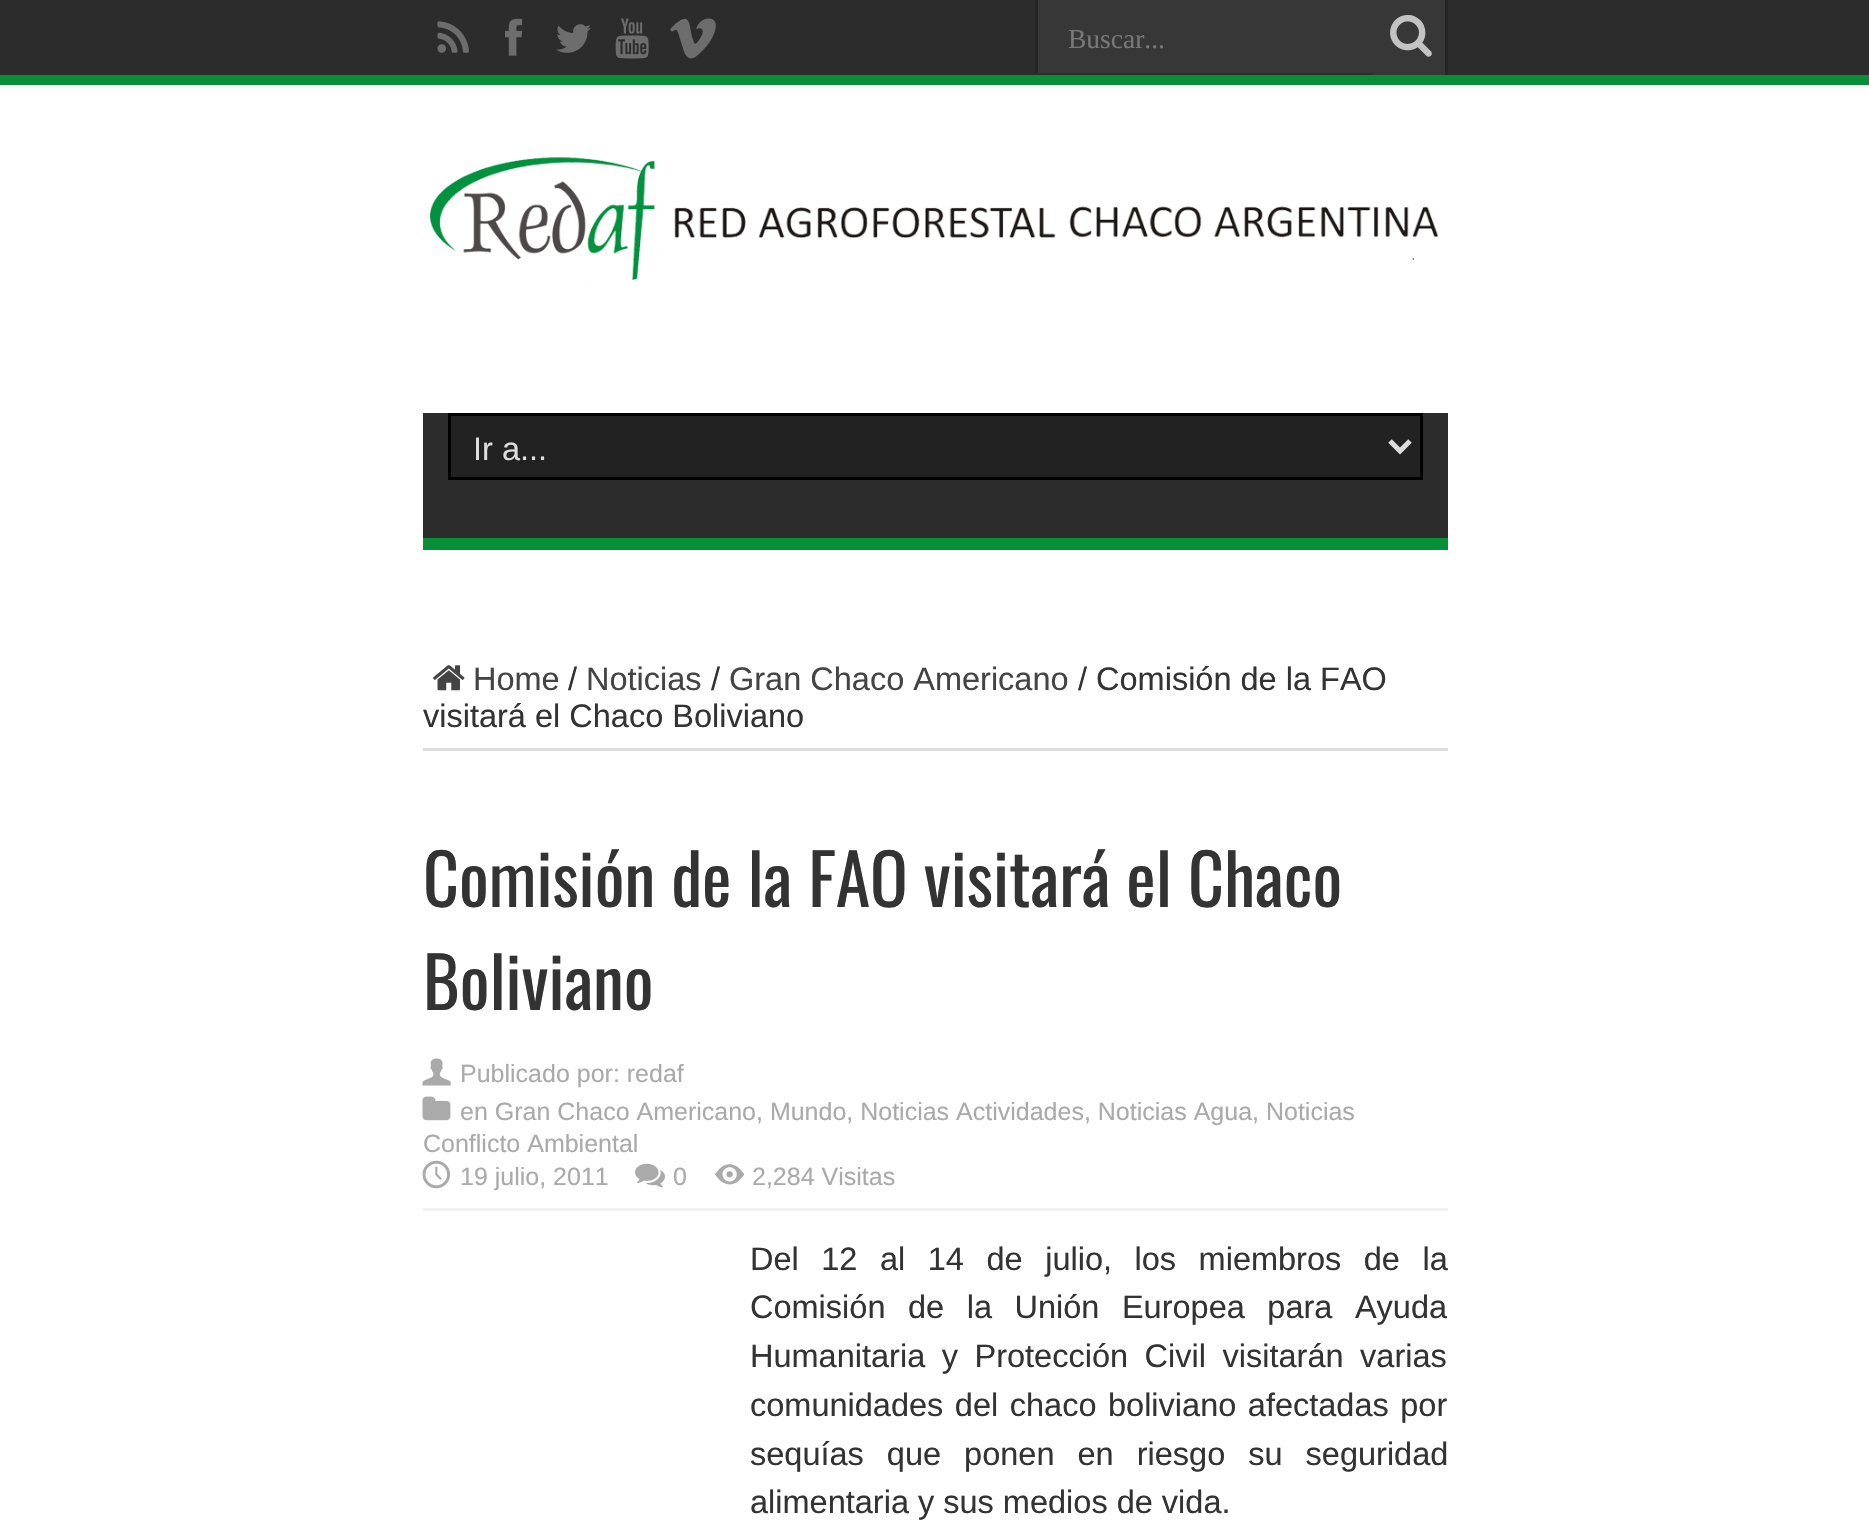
#include "include/core/SkBlurTypes.h"
#include "include/core/SkCanvas.h"
#include "include/core/SkData.h"
#include "include/core/SkFont.h"
#include "include/core/SkFontMgr.h"
#include "include/core/SkImage.h"
#include "include/core/SkMaskFilter.h"
#include "include/core/SkPaint.h"
#include "include/core/SkPathBuilder.h"
#include "include/core/SkTextBlob.h"
#include "include/effects/SkDashPathEffect.h"
#include "include/effects/SkGradientShader.h"
#include "include/utils/SkParsePath.h"

extern sk_sp<SkFontMgr> fontMgr;

void draw(SkCanvas* canvas) {
  SkPaint p;
  p.setAntiAlias(true);
  auto spacedText = [&](const char* s, float x, float y, const SkFont& font, const SkPaint& ink, float letter, float word) {
    std::vector<SkGlyphID> glyphs(font.countText(s, strlen(s), SkTextEncoding::kUTF8));
    std::vector<float> xs(glyphs.size());
    font.textToGlyphs(s, strlen(s), SkTextEncoding::kUTF8, glyphs);
    font.getXPos(glyphs, xs, x);
    float extra = 0;
    for (size_t i = 0; i < glyphs.size(); i++) {
      xs[i] += extra;
      extra += letter + word * (glyphs[i] == font.unicharToGlyph(' '));
    }
    canvas->drawTextBlob(SkTextBlob::MakeFromPosHGlyphs(glyphs, xs, y, font), 0, 0, ink);
  };
  canvas->clear(SK_ColorWHITE);
  p.setColor(SkColorSetRGB(44, 44, 44));
  canvas->drawRect(SkRect::MakeLTRB(0, 0, 1869, 75), p);
  p.setColor(SkColorSetRGB(6, 143, 54));
  canvas->drawRect(SkRect::MakeLTRB(0, 75, 1869, 85), p);
  canvas->drawImageRect(SkImages::DeferredFromEncodedData(SkData::MakeFromFileName("images/1.png")), SkRect::MakeLTRB(437, 21, 469, 53), SkSamplingOptions());
  canvas->drawImageRect(SkImages::DeferredFromEncodedData(SkData::MakeFromFileName("images/2.png")), SkRect::MakeLTRB(505, 18, 523, 56), SkSamplingOptions());
  canvas->drawImageRect(SkImages::DeferredFromEncodedData(SkData::MakeFromFileName("images/3.png")), SkRect::MakeLTRB(556, 24, 591, 53), SkSamplingOptions());
  canvas->drawImageRect(SkImages::DeferredFromEncodedData(SkData::MakeFromFileName("images/4.png")), SkRect::MakeLTRB(615, 18, 649, 59), SkSamplingOptions());
  canvas->drawImageRect(SkImages::DeferredFromEncodedData(SkData::MakeFromFileName("images/5.png")), SkRect::MakeLTRB(670, 18, 716, 59), SkSamplingOptions());
  p.setColor(SkColorSetRGB(55, 55, 55));
  canvas->drawRect(SkRect::MakeLTRB(1038, 0, 1373, 73), p);
  p.setColor(SkColorSetRGB(37, 37, 37));
  canvas->drawRect(SkRect::MakeLTRB(1035, 0, 1038, 73), p);
  p.setColor(SkColorSetRGB(55, 55, 55));
  canvas->drawRect(SkRect::MakeLTRB(1373, 0, 1445, 75), p);
  p.setColor(SkColorSetRGB(37, 37, 37));
  canvas->drawRect(SkRect::MakeLTRB(1445, 0, 1448, 75), p);
  canvas->drawImageRect(SkImages::DeferredFromEncodedData(SkData::MakeFromFileName("images/6.png")), SkRect::MakeLTRB(1390, 14, 1432, 57), SkSamplingOptions());
  canvas->drawImageRect(SkImages::DeferredFromEncodedData(SkData::MakeFromFileName("images/7.png")), SkRect::MakeLTRB(430, 157, 1439, 289), SkSamplingOptions());
  p.setColor(SkColorSetRGB(44, 44, 44));
  canvas->drawRect(SkRect::MakeLTRB(423, 413, 1448, 538), p);
  p.setColor(SkColorSetRGB(6, 143, 54));
  canvas->drawRect(SkRect::MakeLTRB(423, 538, 1448, 550), p);
  p.setColor(SkColorSetRGB(34, 34, 34));
  canvas->drawRect(SkRect::MakeLTRB(449.5f, 414.5f, 1421.5f, 478.5f), p);
  p.setStyle(SkPaint::kStroke_Style);
  p.setStrokeWidth(3);
  p.setColor(SK_ColorBLACK);
  canvas->drawRect(SkRect::MakeLTRB(449.5f, 414.5f, 1421.5f, 478.5f), p);
  p.setStrokeWidth(5);
  p.setColor(SkColorSetRGB(221, 221, 221));
  canvas->drawPath(SkPathBuilder().moveTo(1390, 441).lineTo(1400, 451).lineTo(1410, 441).detach(), p);
  p.setStyle(SkPaint::kFill_Style);
  canvas->drawRect(SkRect::MakeLTRB(423, 748, 1448, 751), p);
  canvas->drawImageRect(SkImages::DeferredFromEncodedData(SkData::MakeFromFileName("images/8.png")), SkRect::MakeLTRB(433, 665, 465, 691), SkSamplingOptions());
  p.setColor(SkColorSetRGB(242, 242, 242));
  canvas->drawRect(SkRect::MakeLTRB(423, 1208, 1448, 1211), p);
  canvas->drawImageRect(SkImages::DeferredFromEncodedData(SkData::MakeFromFileName("images/9.png")), SkRect::MakeLTRB(422, 1058, 451, 1086), SkSamplingOptions());
  canvas->drawImageRect(SkImages::DeferredFromEncodedData(SkData::MakeFromFileName("images/10.png")), SkRect::MakeLTRB(422, 1096, 451, 1121), SkSamplingOptions());
  canvas->drawImageRect(SkImages::DeferredFromEncodedData(SkData::MakeFromFileName("images/11.png")), SkRect::MakeLTRB(422, 1160, 451, 1189), SkSamplingOptions());
  canvas->drawImageRect(SkImages::DeferredFromEncodedData(SkData::MakeFromFileName("images/12.png")), SkRect::MakeLTRB(635, 1163, 665, 1188), SkSamplingOptions());
  canvas->drawImageRect(SkImages::DeferredFromEncodedData(SkData::MakeFromFileName("images/13.png")), SkRect::MakeLTRB(715, 1164, 745, 1185), SkSamplingOptions());
  SkFont font1(fontMgr->matchFamilyStyle("Liberation Serif", SkFontStyle::Normal()), 27.5f);
  font1.setSubpixel(true);
  p.setColor(SkColorSetRGB(120, 120, 120));
  canvas->drawString("Buscar...", 1068, 48, font1, p);
  SkFont font2(fontMgr->matchFamilyStyle("Liberation Sans", SkFontStyle::Normal()), 32.5f);
  font2.setSubpixel(true);
  p.setColor(SkColorSetRGB(221, 221, 221));
  canvas->drawString("Ir a...", 473, 460, font2, p);
  p.setColor(SkColorSetRGB(68, 68, 68));
  canvas->drawString("Home", 473, 690, font2, p);
  p.setColor(SkColorSetRGB(51, 51, 51));
  canvas->drawString("/", 568, 690, font2, p);
  p.setColor(SkColorSetRGB(68, 68, 68));
  canvas->drawString("Noticias", 586, 690, font2, p);
  p.setColor(SkColorSetRGB(51, 51, 51));
  canvas->drawString("/", 711, 690, font2, p);
  p.setColor(SkColorSetRGB(68, 68, 68));
  canvas->drawString("Gran Chaco Americano", 729, 690, font2, p);
  p.setColor(SkColorSetRGB(51, 51, 51));
  canvas->drawString("/ Comisión de la FAO", 1078, 690, font2, p);
  canvas->drawString("visitará el Chaco Boliviano", 423, 727, font2, p);
  SkFont font3(fontMgr->matchFamilyStyle("Oswald", SkFontStyle::Normal()), 70);
  font3.setSubpixel(true);
  canvas->drawString("Comisión de la FAO visitará el Chaco", 423, 907, font3, p);
  canvas->drawString("Boliviano", 423, 1010, font3, p);
  SkFont font4(fontMgr->matchFamilyStyle("Liberation Sans", SkFontStyle::Normal()), 25);
  font4.setSubpixel(true);
  p.setColor(SkColorSetRGB(170, 170, 170));
  canvas->drawString("Publicado por: redaf", 460, 1082, font4, p);
  canvas->drawString("en Gran Chaco Americano, Mundo, Noticias Actividades, Noticias Agua, Noticias", 460, 1120, font4, p);
  canvas->drawString("Conflicto Ambiental", 423, 1152, font4, p);
  canvas->drawString("19 julio, 2011", 460, 1185, font4, p);
  canvas->drawString("0", 673, 1185, font4, p);
  canvas->drawString("2,284 Visitas", 752, 1185, font4, p);
  p.setColor(SkColorSetRGB(51, 51, 51));
  spacedText("Del 12 al 14 de julio, los miembros de la", 750, 1270, font2, p, 0, 13.5f);
  spacedText("Comisión de la Unión Europea para Ayuda", 750, 1318, font2, p, 0, 13.5f);
  spacedText("Humanitaria y Protección Civil visitarán varias", 750, 1367, font2, p, 0, 7.5f);
  spacedText("comunidades del chaco boliviano afectadas por", 750, 1416, font2, p, 0, 2.5f);
  spacedText("sequías que ponen en riesgo su seguridad", 750, 1465, font2, p, 0, 14);
  canvas->drawString("alimentaria y sus medios de vida.", 750, 1513, font2, p);
}
